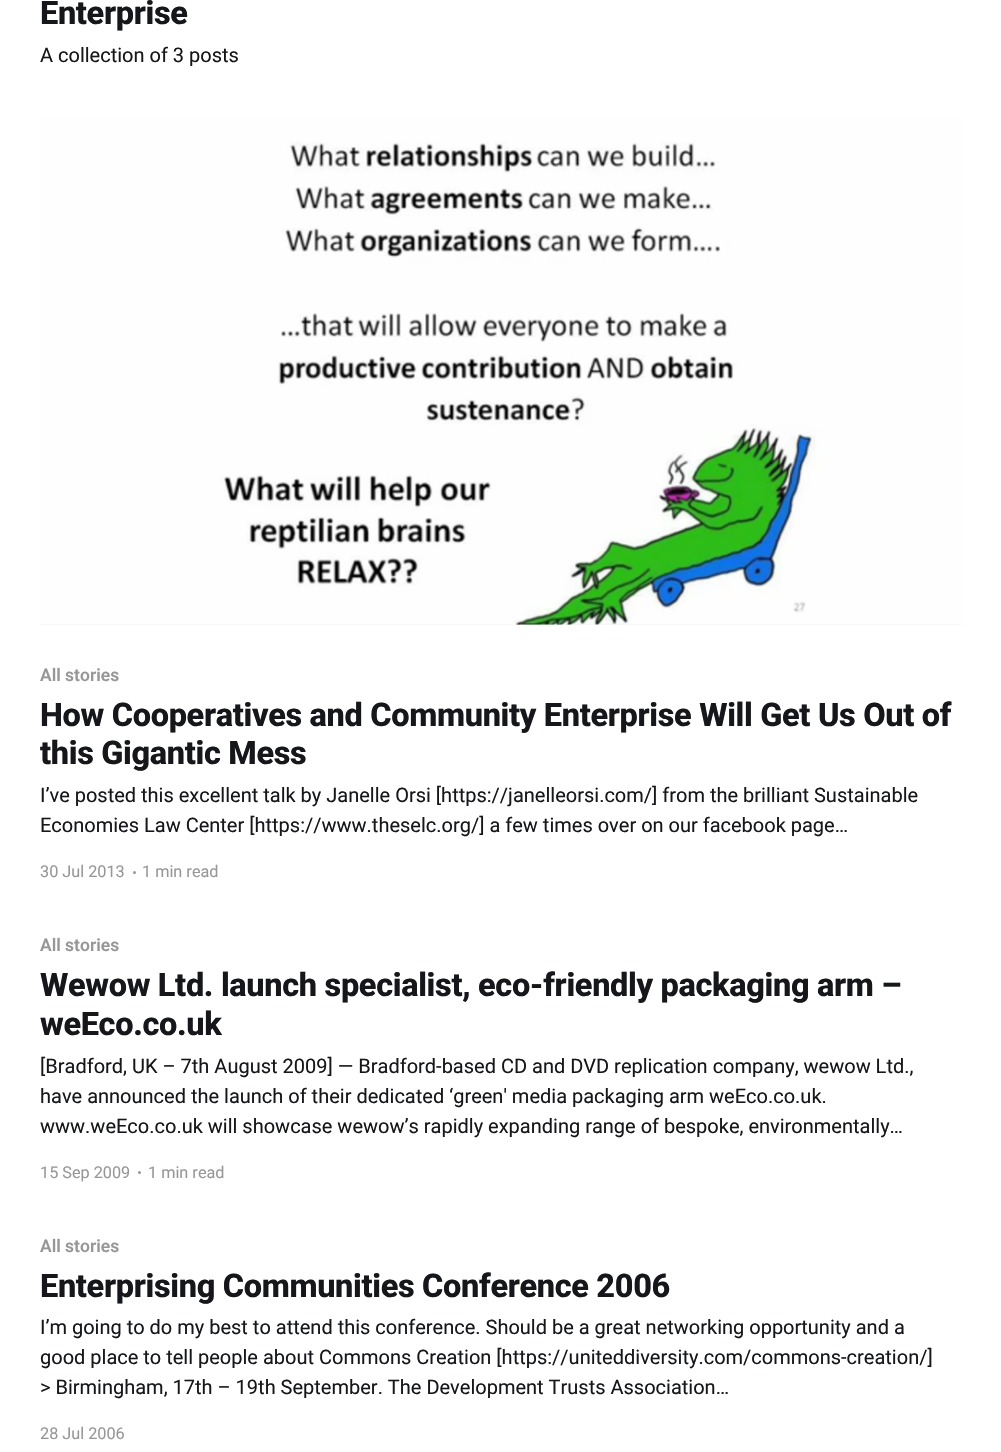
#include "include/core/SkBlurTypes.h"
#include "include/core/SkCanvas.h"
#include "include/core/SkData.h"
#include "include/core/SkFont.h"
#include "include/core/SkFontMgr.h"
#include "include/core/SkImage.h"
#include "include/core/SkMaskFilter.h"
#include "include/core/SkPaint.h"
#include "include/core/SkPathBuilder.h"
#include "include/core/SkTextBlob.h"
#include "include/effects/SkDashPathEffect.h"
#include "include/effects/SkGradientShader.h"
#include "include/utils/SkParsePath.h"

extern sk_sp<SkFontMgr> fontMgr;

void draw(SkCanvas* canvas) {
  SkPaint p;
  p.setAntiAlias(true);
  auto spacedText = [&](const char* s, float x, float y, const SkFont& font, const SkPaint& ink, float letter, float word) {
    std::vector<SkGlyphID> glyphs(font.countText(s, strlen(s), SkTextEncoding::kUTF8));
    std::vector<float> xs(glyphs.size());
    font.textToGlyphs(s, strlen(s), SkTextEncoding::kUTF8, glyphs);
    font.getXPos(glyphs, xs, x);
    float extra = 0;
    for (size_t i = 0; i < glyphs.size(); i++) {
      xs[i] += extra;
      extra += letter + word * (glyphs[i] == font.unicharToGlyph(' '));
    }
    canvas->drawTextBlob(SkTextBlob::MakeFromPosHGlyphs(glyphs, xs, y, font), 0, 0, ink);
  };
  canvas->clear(SK_ColorWHITE);
  p.setColor(SkColorSetRGB(241, 241, 241));
  canvas->drawRect(SkRect::MakeLTRB(40, 624, 961, 625), p);
  canvas->drawImageRect(SkImages::DeferredFromEncodedData(SkData::MakeFromFileName("images/1.png")), SkRect::MakeLTRB(40, 119, 961, 625), SkSamplingOptions());
  p.setColor(SkColorSetRGB(151, 151, 151));
  canvas->drawCircle(134.5f, 872.5f, 1.5f, p);
  canvas->drawCircle(139.5f, 1172.5f, 1.5f, p);
  SkFont font1(fontMgr->matchFamilyStyle("Roboto", SkFontStyle(800, SkFontStyle::kNormal_Width, SkFontStyle::kUpright_Slant)), 32.5f);
  font1.setSubpixel(true);
  p.setColor(SkColorSetRGB(21, 23, 26));
  spacedText("Enterprise", 40, 24, font1, p, -0.33f, 0);
  SkFont font2(fontMgr->matchFamilyStyle("Roboto", SkFontStyle::Normal()), 20);
  font2.setSubpixel(true);
  canvas->drawString("A collection of 3 posts", 40, 62, font2, p);
  SkFont font3(fontMgr->matchFamilyStyle("Roboto", SkFontStyle(600, SkFontStyle::kNormal_Width, SkFontStyle::kUpright_Slant)), 17.5f);
  font3.setSubpixel(true);
  p.setColor(SkColorSetRGB(151, 151, 151));
  canvas->drawString("All stories", 40, 681, font3, p);
  p.setColor(SkColorSetRGB(21, 23, 26));
  spacedText("How Cooperatives and Community Enterprise Will Get Us Out of", 40, 726, font1, p, -0.33f, 0);
  spacedText("this Gigantic Mess", 40, 764, font1, p, -0.33f, 0);
  canvas->drawString("I’ve posted this excellent talk by Janelle Orsi [https://janelleorsi.com/] from the brilliant Sustainable", 40, 802, font2, p);
  canvas->drawString("Economies Law Center [https://www.theselc.org/] a few times over on our facebook page…", 40, 832, font2, p);
  SkFont font4(fontMgr->matchFamilyStyle("Roboto", SkFontStyle::Normal()), 16.25f);
  font4.setSubpixel(true);
  p.setColor(SkColorSetRGB(151, 151, 151));
  canvas->drawString("30 Jul 2013", 40, 877, font4, p);
  canvas->drawString("1 min read", 142, 877, font4, p);
  canvas->drawString("All stories", 40, 951, font3, p);
  p.setColor(SkColorSetRGB(21, 23, 26));
  spacedText("Wewow Ltd. launch specialist, eco-friendly packaging arm –", 40, 996, font1, p, -0.33f, 0);
  spacedText("weEco.co.uk", 40, 1035, font1, p, -0.33f, 0);
  canvas->drawString("[Bradford, UK – 7th August 2009] — Bradford-based CD and DVD replication company, wewow Ltd.,", 40, 1073, font2, p);
  canvas->drawString("have announced the launch of their dedicated ‘green' media packaging arm weEco.co.uk.", 40, 1103, font2, p);
  canvas->drawString("www.weEco.co.uk will showcase wewow’s rapidly expanding range of bespoke, environmentally…", 40, 1133, font2, p);
  p.setColor(SkColorSetRGB(151, 151, 151));
  canvas->drawString("15 Sep 2009", 40, 1178, font4, p);
  canvas->drawString("1 min read", 148, 1178, font4, p);
  canvas->drawString("All stories", 40, 1252, font3, p);
  p.setColor(SkColorSetRGB(21, 23, 26));
  spacedText("Enterprising Communities Conference 2006", 40, 1297, font1, p, -0.33f, 0);
  canvas->drawString("I’m going to do my best to attend this conference. Should be a great networking opportunity and a", 40, 1334, font2, p);
  canvas->drawString("good place to tell people about Commons Creation [https://uniteddiversity.com/commons-creation/]", 40, 1364, font2, p);
  canvas->drawString("> Birmingham, 17th – 19th September. The Development Trusts Association…", 40, 1394, font2, p);
  p.setColor(SkColorSetRGB(151, 151, 151));
  canvas->drawString("28 Jul 2006", 40, 1439, font4, p);
}
